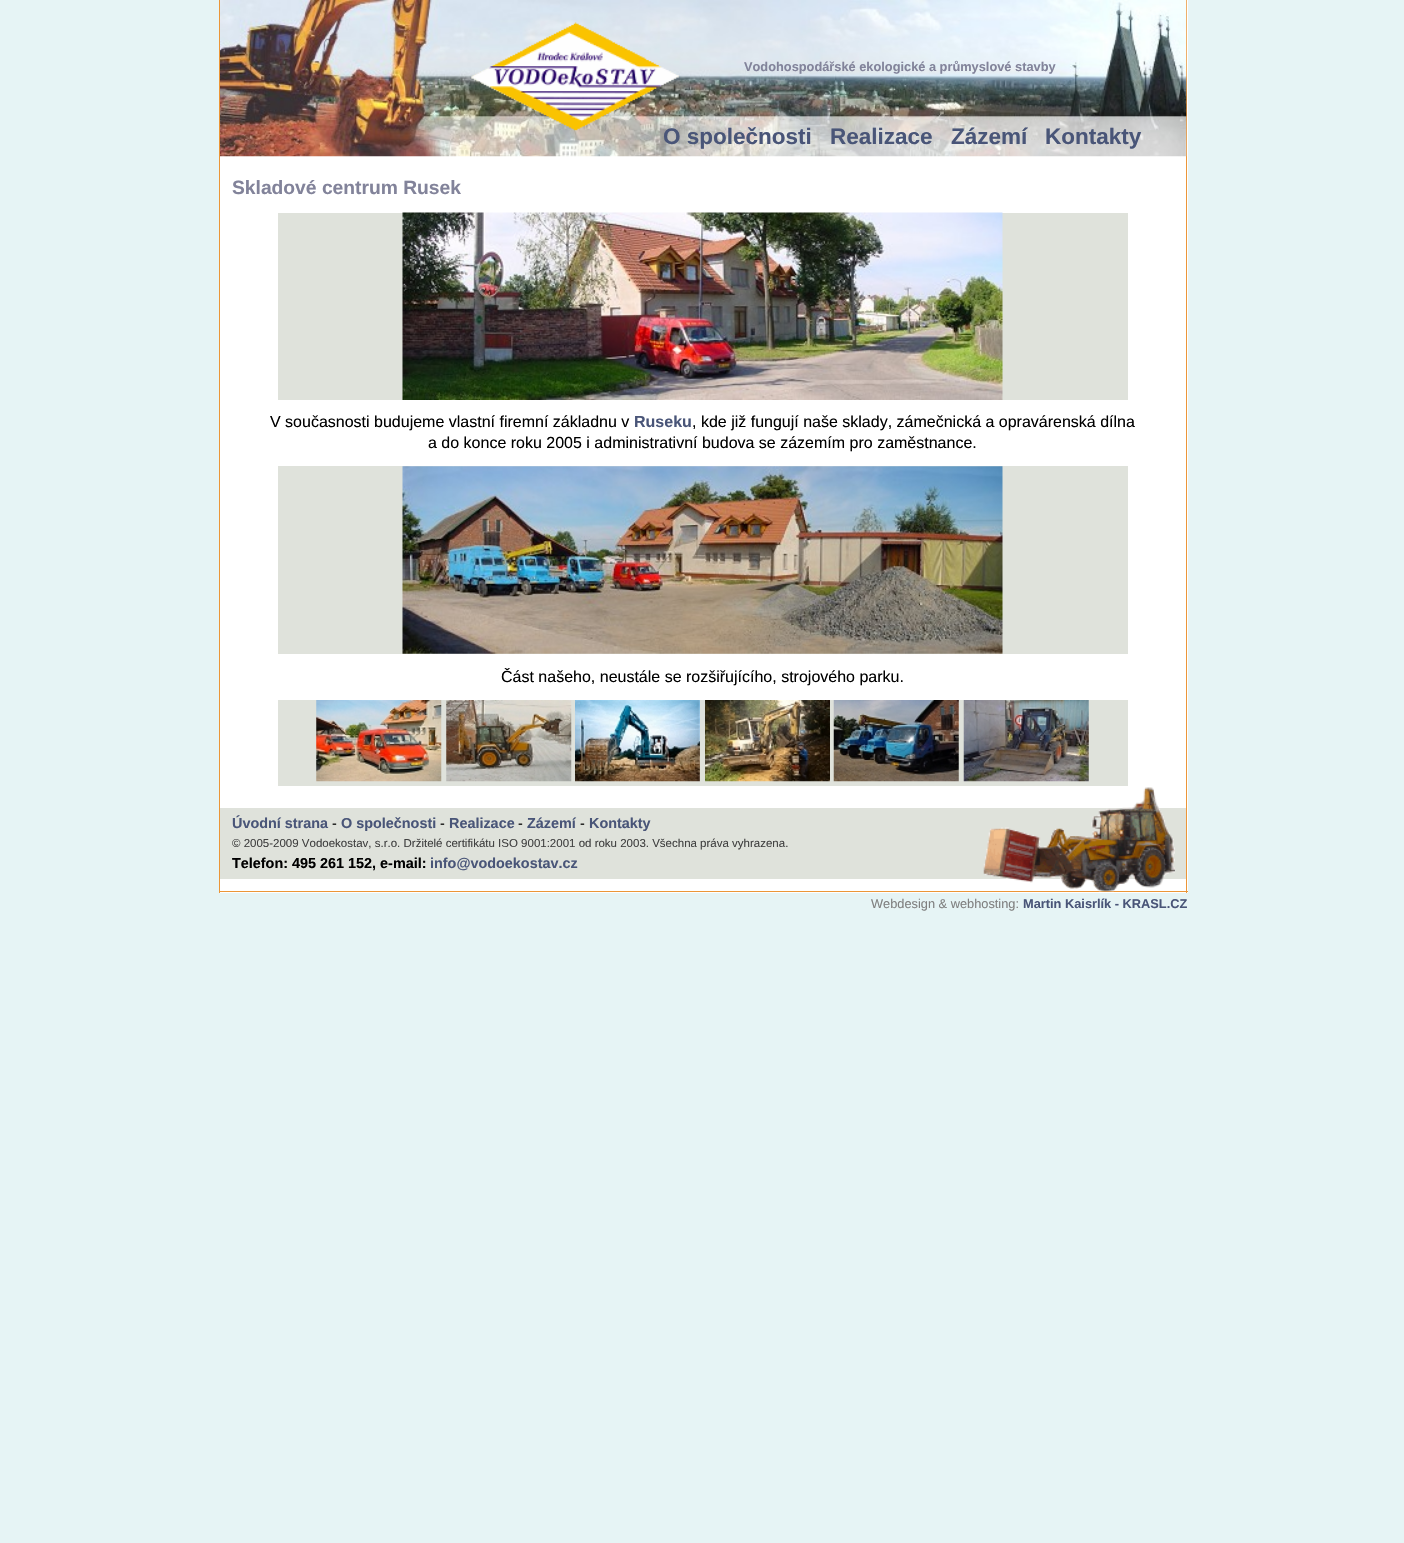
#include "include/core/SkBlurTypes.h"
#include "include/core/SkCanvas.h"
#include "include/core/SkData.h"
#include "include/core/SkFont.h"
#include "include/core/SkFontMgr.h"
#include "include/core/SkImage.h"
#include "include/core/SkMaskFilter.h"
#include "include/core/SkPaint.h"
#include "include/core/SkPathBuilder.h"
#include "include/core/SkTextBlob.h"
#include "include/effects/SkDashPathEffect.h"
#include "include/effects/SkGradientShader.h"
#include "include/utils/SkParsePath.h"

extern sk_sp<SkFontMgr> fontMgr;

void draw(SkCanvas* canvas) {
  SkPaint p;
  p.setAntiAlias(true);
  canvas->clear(SkColorSetRGB(230, 244, 245));
  p.setColor(SK_ColorWHITE);
  canvas->drawRect(SkRect::MakeLTRB(220, 0, 1188, 893), p);
  p.setColor(SkColorSetRGB(235, 150, 56));
  canvas->drawRect(SkRect::MakeLTRB(1186, 0, 1187, 893), p);
  canvas->drawRect(SkRect::MakeLTRB(219, 891, 1188, 892), p);
  canvas->drawRect(SkRect::MakeLTRB(219, 0, 220, 893), p);
  canvas->drawImageRect(SkImages::DeferredFromEncodedData(SkData::MakeFromFileName("images/1.png")), SkRect::MakeLTRB(220, 0, 1187, 157), SkSamplingOptions());
  p.setColor(SkColorSetRGB(223, 226, 219));
  canvas->drawRect(SkRect::MakeLTRB(278, 213, 1128, 400), p);
  canvas->drawImageRect(SkImages::DeferredFromEncodedData(SkData::MakeFromFileName("images/3.png")), SkRect::MakeLTRB(402, 212, 1003, 400), SkSamplingOptions());
  canvas->drawRect(SkRect::MakeLTRB(278, 466, 1128, 654), p);
  canvas->drawImageRect(SkImages::DeferredFromEncodedData(SkData::MakeFromFileName("images/4.png")), SkRect::MakeLTRB(402, 466, 1003, 654), SkSamplingOptions());
  canvas->drawRect(SkRect::MakeLTRB(278, 700, 1128, 786), p);
  canvas->drawImageRect(SkImages::DeferredFromEncodedData(SkData::MakeFromFileName("images/5.png")), SkRect::MakeLTRB(316, 700, 442, 782), SkSamplingOptions());
  canvas->drawImageRect(SkImages::DeferredFromEncodedData(SkData::MakeFromFileName("images/6.png")), SkRect::MakeLTRB(446, 700, 572, 782), SkSamplingOptions());
  canvas->drawImageRect(SkImages::DeferredFromEncodedData(SkData::MakeFromFileName("images/7.png")), SkRect::MakeLTRB(575, 700, 700, 782), SkSamplingOptions());
  canvas->drawImageRect(SkImages::DeferredFromEncodedData(SkData::MakeFromFileName("images/8.png")), SkRect::MakeLTRB(705, 700, 830, 782), SkSamplingOptions());
  canvas->drawImageRect(SkImages::DeferredFromEncodedData(SkData::MakeFromFileName("images/9.png")), SkRect::MakeLTRB(833, 700, 959, 782), SkSamplingOptions());
  canvas->drawImageRect(SkImages::DeferredFromEncodedData(SkData::MakeFromFileName("images/10.png")), SkRect::MakeLTRB(963, 700, 1089, 782), SkSamplingOptions());
  canvas->drawRect(SkRect::MakeLTRB(220, 808, 1186, 879), p);
  canvas->drawImageRect(SkImages::DeferredFromEncodedData(SkData::MakeFromFileName("images/11.png")), SkRect::MakeLTRB(983, 787, 1175, 892), SkSamplingOptions());
  SkFont font1(fontMgr->matchFamilyStyle("Liberation Sans", SkFontStyle::Bold()), 12.8f);
  font1.setSubpixel(true);
  p.setColor(SkColorSetRGB(130, 131, 154));
  canvas->drawString("Vodohospodářské ekologické a průmyslové stavby", 744, 71, font1, p);
  SkFont font2(fontMgr->matchFamilyStyle("Liberation Sans", SkFontStyle::Bold()), 22.5f);
  font2.setSubpixel(true);
  p.setColor(SkColorSetRGB(73, 85, 120));
  canvas->drawString("O společnosti", 663, 144, font2, p);
  canvas->drawImageRect(SkImages::DeferredFromEncodedData(SkData::MakeFromFileName("images/2.png")), SkRect::MakeLTRB(471, 22, 679, 131), SkSamplingOptions());
  canvas->drawString("Realizace", 830, 144, font2, p);
  canvas->drawString("Zázemí", 951, 144, font2, p);
  canvas->drawString("Kontakty", 1045, 144, font2, p);
  SkFont font3(fontMgr->matchFamilyStyle("Liberation Sans", SkFontStyle::Bold()), 19.25f);
  font3.setSubpixel(true);
  p.setColor(SkColorSetRGB(130, 131, 154));
  canvas->drawString("Skladové centrum Rusek", 232, 194, font3, p);
  SkFont font4(fontMgr->matchFamilyStyle("Liberation Sans", SkFontStyle::Normal()), 16);
  font4.setSubpixel(true);
  p.setColor(SK_ColorBLACK);
  canvas->drawString("V současnosti budujeme vlastní firemní základnu v", 270, 427, font4, p);
  SkFont font5(fontMgr->matchFamilyStyle("Liberation Sans", SkFontStyle::Bold()), 16);
  font5.setSubpixel(true);
  p.setColor(SkColorSetRGB(73, 85, 120));
  canvas->drawString("Ruseku", 634, 427, font5, p);
  p.setColor(SK_ColorBLACK);
  canvas->drawString(", kde již fungují naše sklady, zámečnická a opravárenská dílna", 692, 427, font4, p);
  canvas->drawString("a do konce roku 2005 i administrativní budova se zázemím pro zaměstnance.", 428, 448, font4, p);
  canvas->drawString("Část našeho, neustále se rozšiřujícího, strojového parku.", 501, 682, font4, p);
  SkFont font6(fontMgr->matchFamilyStyle("Liberation Sans", SkFontStyle::Bold()), 14.4f);
  font6.setSubpixel(true);
  p.setColor(SkColorSetRGB(73, 85, 120));
  canvas->drawString("Úvodní strana", 232, 828, font6, p);
  SkFont font7(fontMgr->matchFamilyStyle("Liberation Sans", SkFontStyle::Normal()), 14.4f);
  font7.setSubpixel(true);
  p.setColor(SK_ColorBLACK);
  canvas->drawString("-", 332, 828, font7, p);
  p.setColor(SkColorSetRGB(73, 85, 120));
  canvas->drawString("O společnosti", 341, 828, font6, p);
  p.setColor(SK_ColorBLACK);
  canvas->drawString("-", 440, 828, font7, p);
  p.setColor(SkColorSetRGB(73, 85, 120));
  canvas->drawString("Realizace", 449, 828, font6, p);
  p.setColor(SK_ColorBLACK);
  canvas->drawString("-", 518, 828, font7, p);
  p.setColor(SkColorSetRGB(73, 85, 120));
  canvas->drawString("Zázemí", 527, 828, font6, p);
  p.setColor(SK_ColorBLACK);
  canvas->drawString("-", 580, 828, font7, p);
  p.setColor(SkColorSetRGB(73, 85, 120));
  canvas->drawString("Kontakty", 589, 828, font6, p);
  SkFont font8(fontMgr->matchFamilyStyle("Liberation Sans", SkFontStyle::Normal()), 11.5f);
  font8.setSubpixel(true);
  p.setColor(SkColorSetRGB(64, 64, 64));
  canvas->drawString("© 2005-2009 Vodoekostav, s.r.o. Držitelé certifikátu ISO 9001:2001 od roku 2003. Všechna práva vyhrazena.", 232, 847, font8, p);
  p.setColor(SK_ColorBLACK);
  canvas->drawString("Telefon: 495 261 152, e-mail:", 232, 868, font6, p);
  p.setColor(SkColorSetRGB(73, 85, 120));
  canvas->drawString("info@vodoekostav.cz", 430, 868, font6, p);
  SkFont font9(fontMgr->matchFamilyStyle("Liberation Sans", SkFontStyle::Normal()), 12.8f);
  font9.setSubpixel(true);
  p.setColor(SkColorSetRGB(128, 128, 128));
  canvas->drawString("Webdesign & webhosting:", 871, 908, font9, p);
  p.setColor(SkColorSetRGB(73, 85, 120));
  canvas->drawString("Martin Kaisrlík - KRASL.CZ", 1023, 908, font1, p);
}
